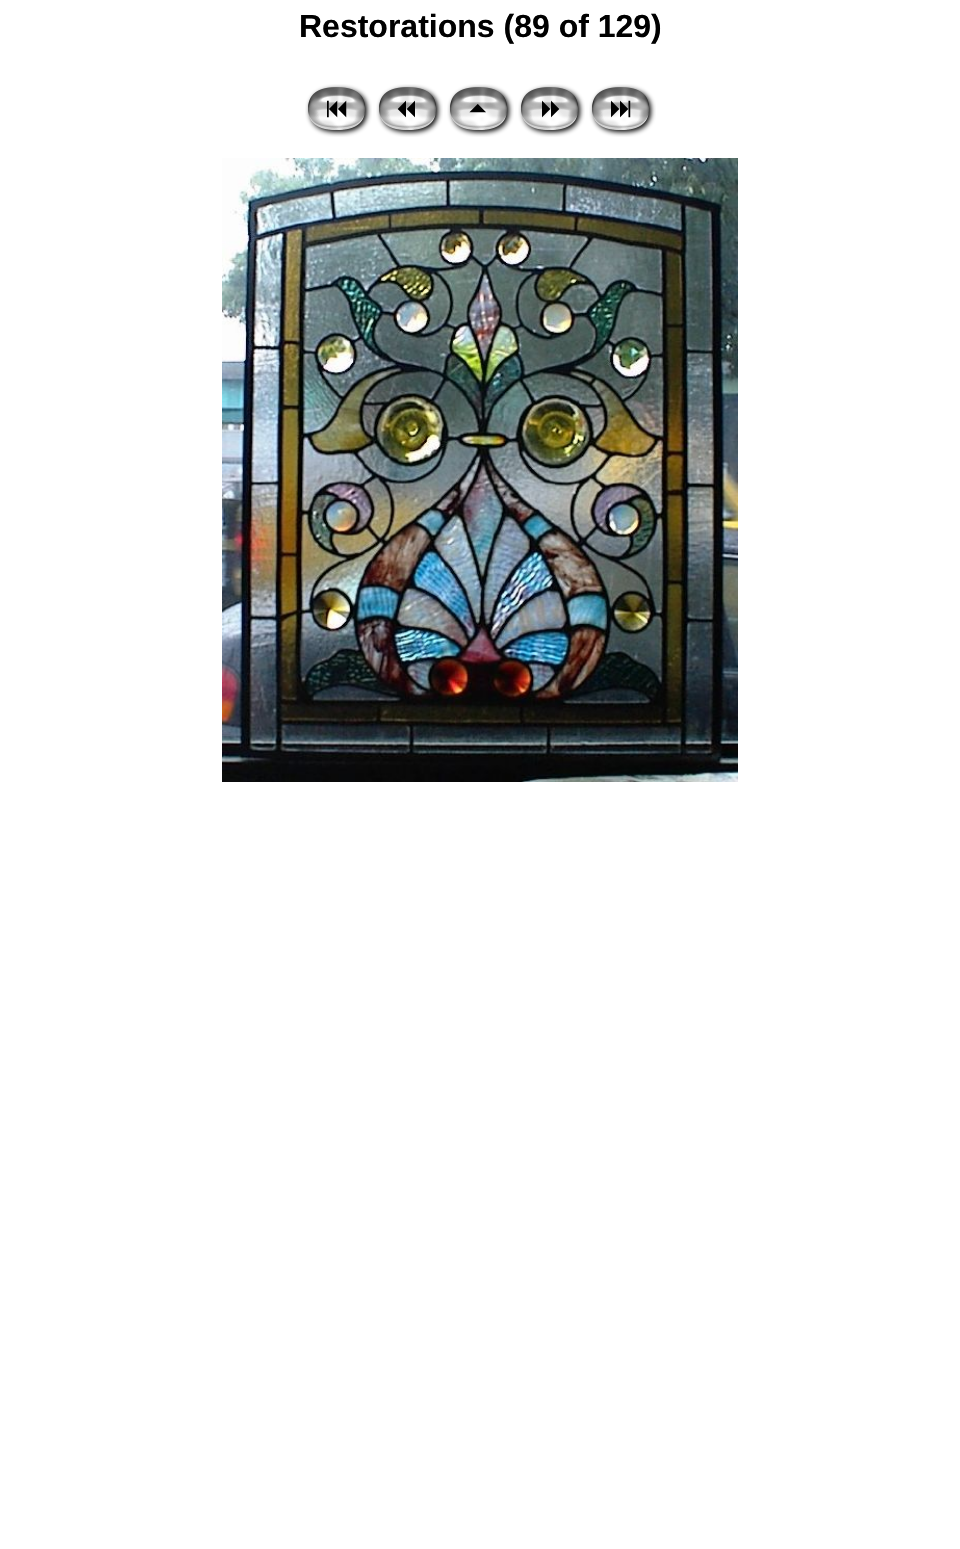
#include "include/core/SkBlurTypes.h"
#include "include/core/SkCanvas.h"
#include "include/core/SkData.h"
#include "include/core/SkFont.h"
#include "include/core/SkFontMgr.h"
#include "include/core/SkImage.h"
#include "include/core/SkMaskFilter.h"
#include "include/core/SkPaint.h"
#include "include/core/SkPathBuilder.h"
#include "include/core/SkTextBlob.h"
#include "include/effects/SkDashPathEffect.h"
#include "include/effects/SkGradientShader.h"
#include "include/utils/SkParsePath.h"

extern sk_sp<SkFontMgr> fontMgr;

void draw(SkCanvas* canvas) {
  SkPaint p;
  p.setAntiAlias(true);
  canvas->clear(SK_ColorWHITE);
  canvas->drawImageRect(SkImages::DeferredFromEncodedData(SkData::MakeFromFileName("images/1.png")), SkRect::MakeLTRB(305, 84, 372, 137), SkSamplingOptions());
  canvas->drawImageRect(SkImages::DeferredFromEncodedData(SkData::MakeFromFileName("images/2.png")), SkRect::MakeLTRB(376, 84, 443, 137), SkSamplingOptions());
  canvas->drawImageRect(SkImages::DeferredFromEncodedData(SkData::MakeFromFileName("images/3.png")), SkRect::MakeLTRB(447, 84, 514, 137), SkSamplingOptions());
  canvas->drawImageRect(SkImages::DeferredFromEncodedData(SkData::MakeFromFileName("images/4.png")), SkRect::MakeLTRB(518, 84, 585, 137), SkSamplingOptions());
  canvas->drawImageRect(SkImages::DeferredFromEncodedData(SkData::MakeFromFileName("images/5.png")), SkRect::MakeLTRB(589, 84, 656, 137), SkSamplingOptions());
  canvas->drawImageRect(SkImages::DeferredFromEncodedData(SkData::MakeFromFileName("images/6.png")), SkRect::MakeLTRB(222, 158, 738, 782), SkSamplingOptions());
  SkFont font1(fontMgr->matchFamilyStyle("Liberation Sans", SkFontStyle::Bold()), 32);
  font1.setSubpixel(true);
  p.setColor(SK_ColorBLACK);
  canvas->drawString("Restorations (89 of 129)", 299, 37, font1, p);
}
